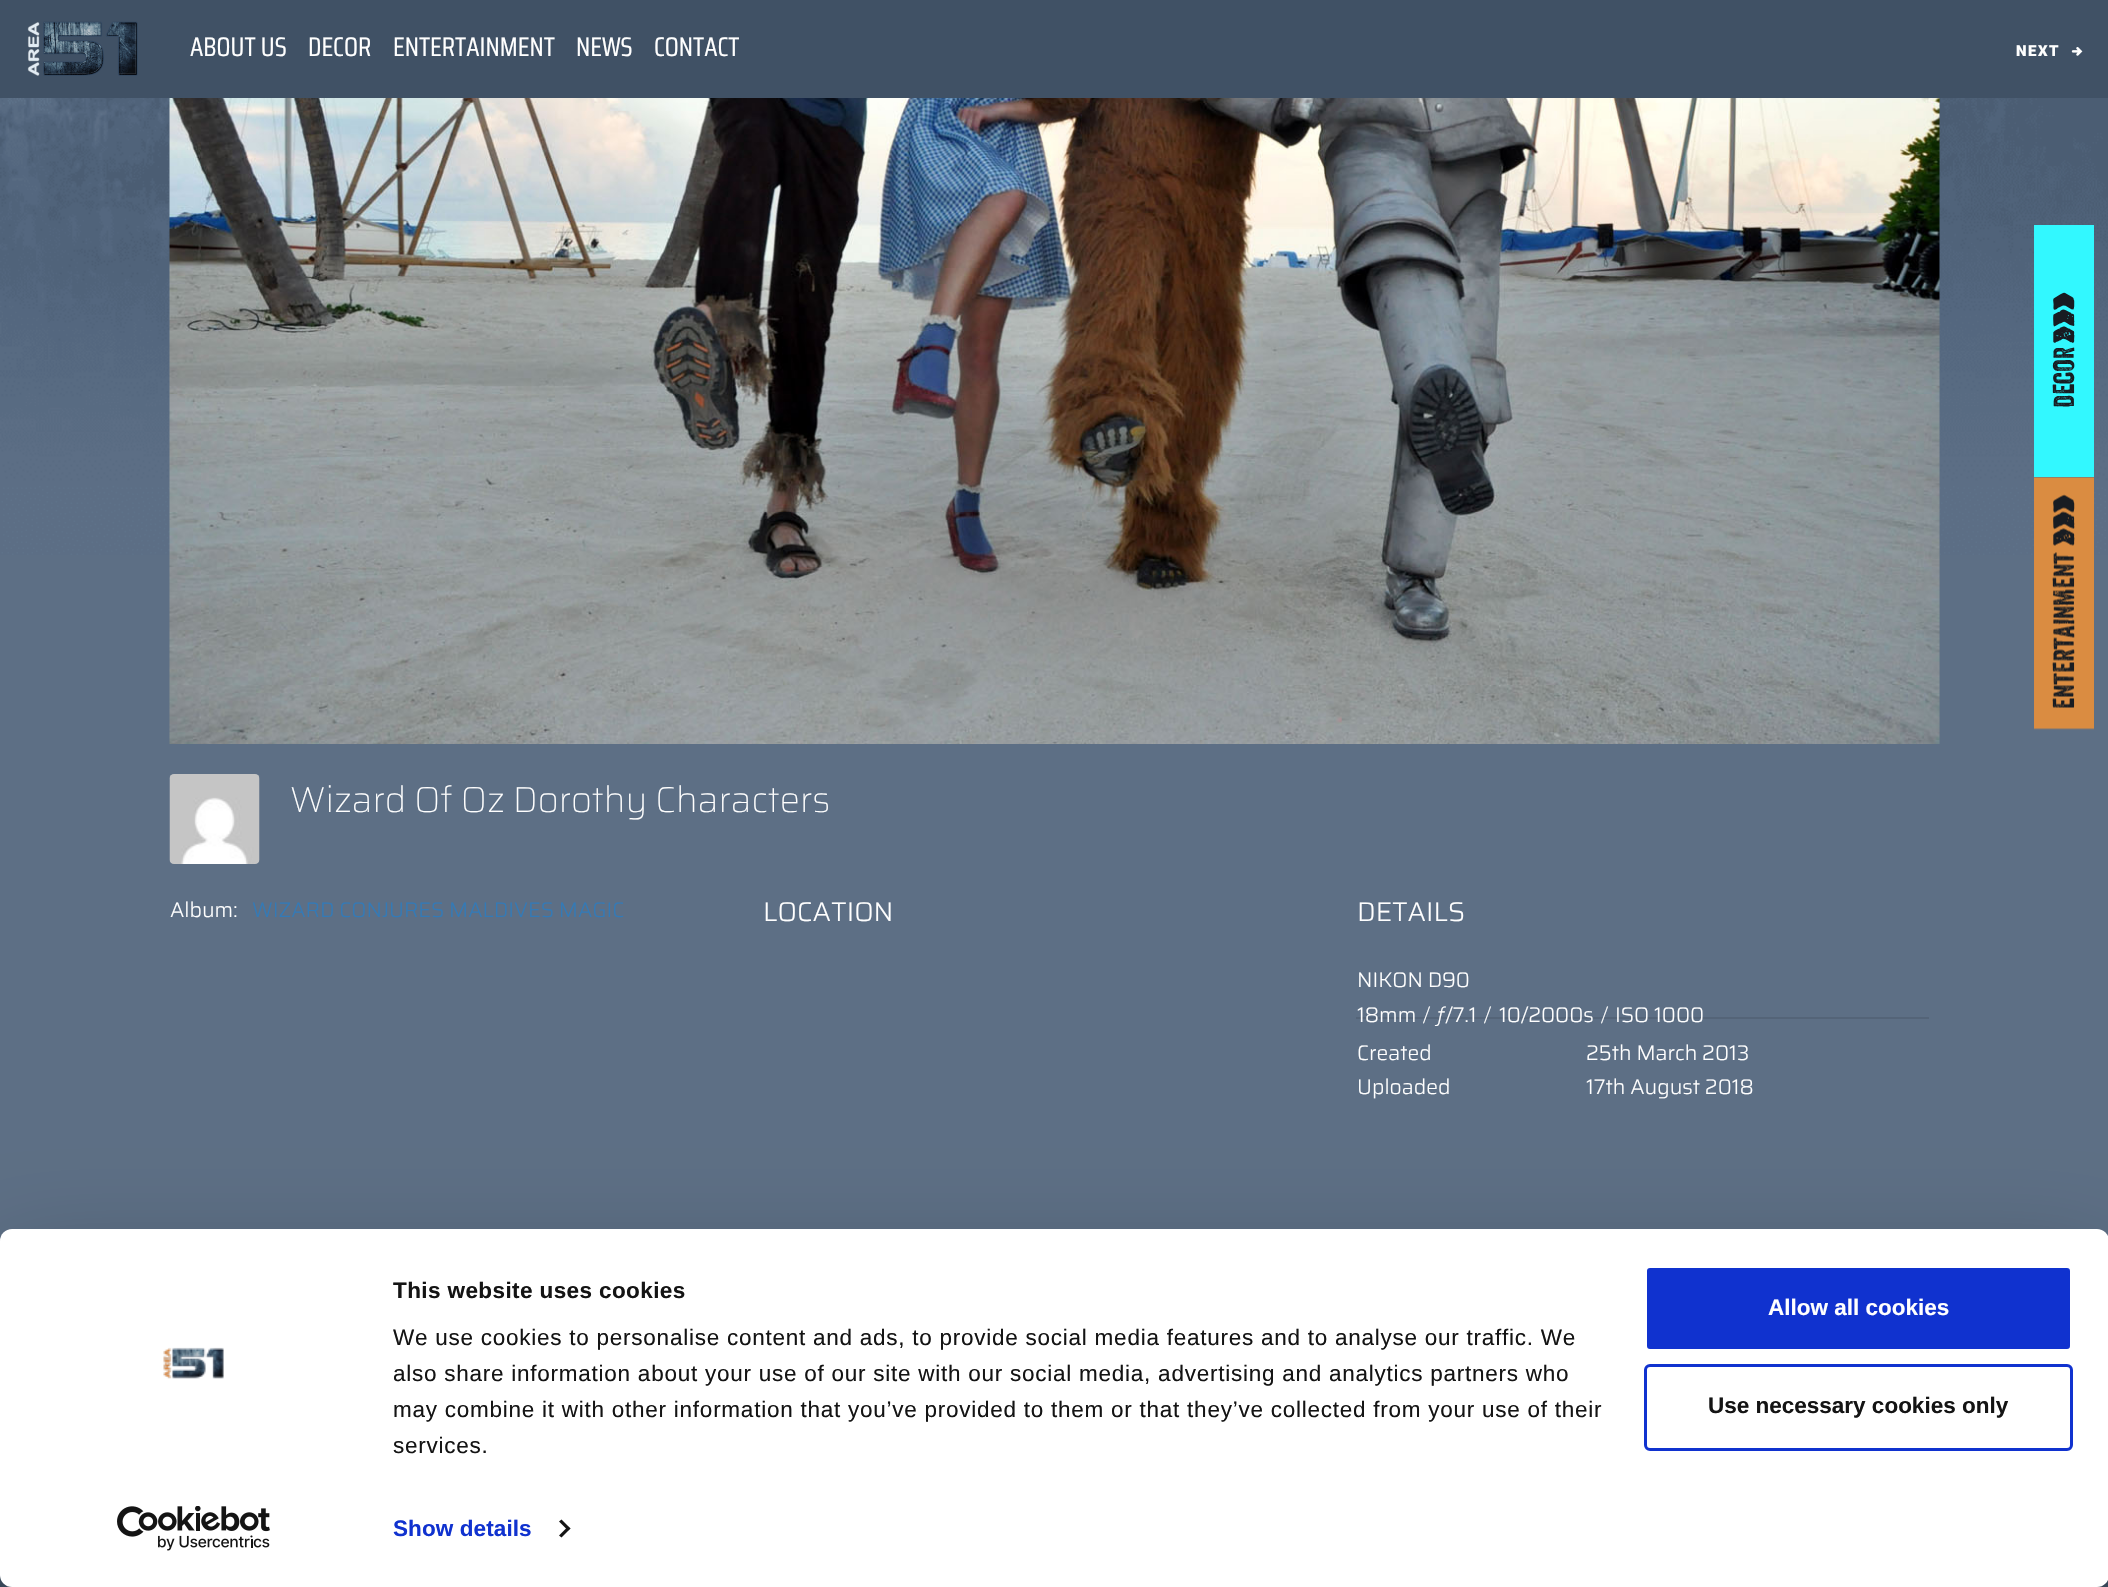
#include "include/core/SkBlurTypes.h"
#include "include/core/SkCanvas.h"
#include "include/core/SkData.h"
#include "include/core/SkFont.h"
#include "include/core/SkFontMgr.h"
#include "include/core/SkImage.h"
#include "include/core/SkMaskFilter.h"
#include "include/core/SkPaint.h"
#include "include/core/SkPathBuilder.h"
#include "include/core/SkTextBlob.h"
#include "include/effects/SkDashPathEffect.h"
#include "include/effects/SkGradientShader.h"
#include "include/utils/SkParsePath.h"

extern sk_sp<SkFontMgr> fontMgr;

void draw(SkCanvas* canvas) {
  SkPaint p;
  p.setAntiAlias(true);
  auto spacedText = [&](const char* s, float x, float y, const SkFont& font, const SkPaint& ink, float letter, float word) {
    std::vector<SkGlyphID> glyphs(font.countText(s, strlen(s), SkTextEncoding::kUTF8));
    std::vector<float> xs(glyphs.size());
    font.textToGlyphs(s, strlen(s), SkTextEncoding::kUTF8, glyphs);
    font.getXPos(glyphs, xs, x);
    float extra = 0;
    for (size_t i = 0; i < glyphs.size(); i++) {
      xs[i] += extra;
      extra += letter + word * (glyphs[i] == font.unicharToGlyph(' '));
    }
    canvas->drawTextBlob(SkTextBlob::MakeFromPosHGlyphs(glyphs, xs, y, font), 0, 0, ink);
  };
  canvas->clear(SkColorSetRGB(93, 111, 133));
  canvas->drawImageRect(SkImages::DeferredFromEncodedData(SkData::MakeFromFileName("images/1.png")), SkRect::MakeLTRB(0, 98, 2108, 555), SkSamplingOptions());
  p.setColor(SkColorSetRGB(64, 81, 101));
  canvas->drawRect(SkRect::MakeLTRB(0, 0, 2108, 98), p);
  canvas->drawImageRect(SkImages::DeferredFromEncodedData(SkData::MakeFromFileName("images/2.png")), SkRect::MakeLTRB(27, 21, 138, 76), SkSamplingOptions());
  canvas->drawImageRect(SkImages::DeferredFromEncodedData(SkData::MakeFromFileName("images/3.png")), SkRect::MakeLTRB(2071, 47, 2083, 56), SkSamplingOptions());
  canvas->drawImageRect(SkImages::DeferredFromEncodedData(SkData::MakeFromFileName("images/4.png")), SkRect::MakeLTRB(2034, 225, 2094, 477), SkSamplingOptions());
  canvas->drawImageRect(SkImages::DeferredFromEncodedData(SkData::MakeFromFileName("images/5.png")), SkRect::MakeLTRB(2034, 477, 2094, 730), SkSamplingOptions());
  canvas->drawImageRect(SkImages::DeferredFromEncodedData(SkData::MakeFromFileName("images/6.png")), SkRect::MakeLTRB(169, 98, 1940, 744), SkSamplingOptions());
  canvas->drawImageRect(SkImages::DeferredFromEncodedData(SkData::MakeFromFileName("images/7.png")), SkRect::MakeLTRB(169, 774, 260, 864), SkSamplingOptions());
  p.setColor(SkColorSetRGB(84, 100, 120));
  canvas->drawRect(SkRect::MakeLTRB(1356, 1017, 1929, 1019), p);
  p.setColor(SkColorSetRGB(64, 81, 101));
  canvas->drawRect(SkRect::MakeLTRB(0, 1575, 2108, 1587), p);
  p.setColor(SkColorSetARGB(77, 0, 0, 0));
  p.setMaskFilter(SkMaskFilter::MakeBlur(kNormal_SkBlurStyle, 52.5f));
  canvas->drawRoundRect(SkRect::MakeLTRB(0, 1274, 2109, 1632), 12, 12, p);
  p.setMaskFilter(nullptr);
  p.setColor(SK_ColorWHITE);
  canvas->drawRoundRect(SkRect::MakeLTRB(0, 1229, 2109, 1587), 12, 12, p);
  canvas->drawImageRect(SkImages::DeferredFromEncodedData(SkData::MakeFromFileName("images/8.png")), SkRect::MakeLTRB(163, 1347, 224, 1379), SkSamplingOptions());
  canvas->drawImageRect(SkImages::DeferredFromEncodedData(SkData::MakeFromFileName("images/9.png")), SkRect::MakeLTRB(117, 1506, 270, 1551), SkSamplingOptions());
  p.setColor(SkColorSetRGB(20, 20, 20));
  canvas->drawPath(SkPathBuilder().moveTo(561.5f, 1519.5f).lineTo(570.5f, 1528.5f).lineTo(568, 1530.5f).lineTo(559, 1521.5f).close().detach(), p);
  canvas->drawPath(SkPathBuilder().moveTo(568, 1526.5f).lineTo(570.5f, 1528.5f).lineTo(561.5f, 1537.5f).lineTo(559, 1535.5f).close().detach(), p);
  p.setColor(SkColorSetRGB(16, 50, 207));
  canvas->drawRoundRect(SkRect::MakeLTRB(1645.5f, 1266.5f, 2071.5f, 1350.5f), 4.5f, 4.5f, p);
  p.setStyle(SkPaint::kStroke_Style);
  p.setStrokeWidth(3);
  p.setColor(SK_ColorWHITE);
  canvas->drawRoundRect(SkRect::MakeLTRB(1645.5f, 1266.5f, 2071.5f, 1350.5f), 4.5f, 4.5f, p);
  p.setColor(SkColorSetRGB(16, 50, 207));
  canvas->drawRoundRect(SkRect::MakeLTRB(1645.5f, 1365.5f, 2071.5f, 1449.5f), 4.5f, 4.5f, p);
  SkFont font1(fontMgr->matchFamilyStyle("Saira Condensed", SkFontStyle::Normal()), 27);
  font1.setSubpixel(true);
  p.setStyle(SkPaint::kFill_Style);
  p.setColor(SK_ColorWHITE);
  canvas->drawString("ABOUT US", 190, 56, font1, p);
  canvas->drawString("DECOR", 308, 56, font1, p);
  canvas->drawString("ENTERTAINMENT", 393, 56, font1, p);
  canvas->drawString("NEWS", 576, 56, font1, p);
  canvas->drawString("CONTACT", 654, 56, font1, p);
  SkFont font2(fontMgr->matchFamilyStyle("Roboto", SkFontStyle(900, SkFontStyle::kNormal_Width, SkFontStyle::kUpright_Slant)), 15);
  font2.setSubpixel(true);
  spacedText("NEXT", 2016, 56, font2, p, 1.5f, 0);
  SkFont font3(fontMgr->matchFamilyStyle("Saira", SkFontStyle(100, SkFontStyle::kNormal_Width, SkFontStyle::kUpright_Slant)), 36);
  font3.setSubpixel(true);
  canvas->drawString("Wizard Of Oz Dorothy Characters", 290, 812, font3, p);
  SkFont font4(fontMgr->matchFamilyStyle("Saira", SkFontStyle(300, SkFontStyle::kNormal_Width, SkFontStyle::kUpright_Slant)), 21);
  font4.setSubpixel(true);
  canvas->drawString("Album:", 170, 917, font4, p);
  p.setColor(SkColorSetRGB(51, 122, 183));
  canvas->drawString("WIZARD CONJURES MALDIVES MAGIC", 252, 917, font4, p);
  SkFont font5(fontMgr->matchFamilyStyle("Saira", SkFontStyle(300, SkFontStyle::kNormal_Width, SkFontStyle::kUpright_Slant)), 27);
  font5.setSubpixel(true);
  p.setColor(SK_ColorWHITE);
  canvas->drawString("LOCATION", 763, 921, font5, p);
  canvas->drawString("DETAILS", 1357, 921, font5, p);
  canvas->drawString("NIKON D90", 1357, 987, font4, p);
  canvas->drawString("18mm", 1357, 1022, font4, p);
  SkFont font6(fontMgr->matchFamilyStyle("Saira", SkFontStyle(200, SkFontStyle::kNormal_Width, SkFontStyle::kUpright_Slant)), 21);
  font6.setSubpixel(true);
  canvas->drawString("/", 1423, 1022, font6, p);
  canvas->drawString("ƒ/7.1", 1438, 1022, font4, p);
  canvas->drawString("/", 1484, 1022, font6, p);
  canvas->drawString("10/2000s", 1499, 1022, font4, p);
  canvas->drawString("/", 1601, 1022, font6, p);
  canvas->drawString("ISO 1000", 1615, 1022, font4, p);
  canvas->drawString("Created", 1357, 1060, font4, p);
  canvas->drawString("25th March 2013", 1586, 1060, font4, p);
  canvas->drawString("Uploaded", 1357, 1094, font4, p);
  canvas->drawString("17th August 2018", 1586, 1094, font4, p);
  SkFont font7(fontMgr->matchFamilyStyle("Liberation Sans", SkFontStyle::Bold()), 22.5f);
  font7.setSubpixel(true);
  p.setColor(SkColorSetRGB(20, 20, 20));
  spacedText("This website uses cookies", 393, 1298, font7, p, 0.4f, 0);
  SkFont font8(fontMgr->matchFamilyStyle("Liberation Sans", SkFontStyle::Normal()), 22.5f);
  font8.setSubpixel(true);
  spacedText("We use cookies to personalise content and ads, to provide social media features and to analyse our traffic. We", 393, 1345, font8, p, 0.75f, 0);
  spacedText("also share information about your use of our site with our social media, advertising and analytics partners who", 393, 1381, font8, p, 0.75f, 0);
  spacedText("may combine it with other information that you’ve provided to them or that they’ve collected from your use of their", 393, 1417, font8, p, 0.75f, 0);
  spacedText("services.", 393, 1453, font8, p, 0.75f, 0);
  p.setColor(SkColorSetRGB(16, 50, 207));
  spacedText("Show details", 393, 1536, font7, p, 0.1f, 0);
  p.setColor(SK_ColorWHITE);
  canvas->drawString("Allow all cookies", 1768, 1315, font7, p);
  p.setColor(SkColorSetRGB(20, 20, 20));
  canvas->drawString("Use necessary cookies only", 1708, 1413, font7, p);
}
